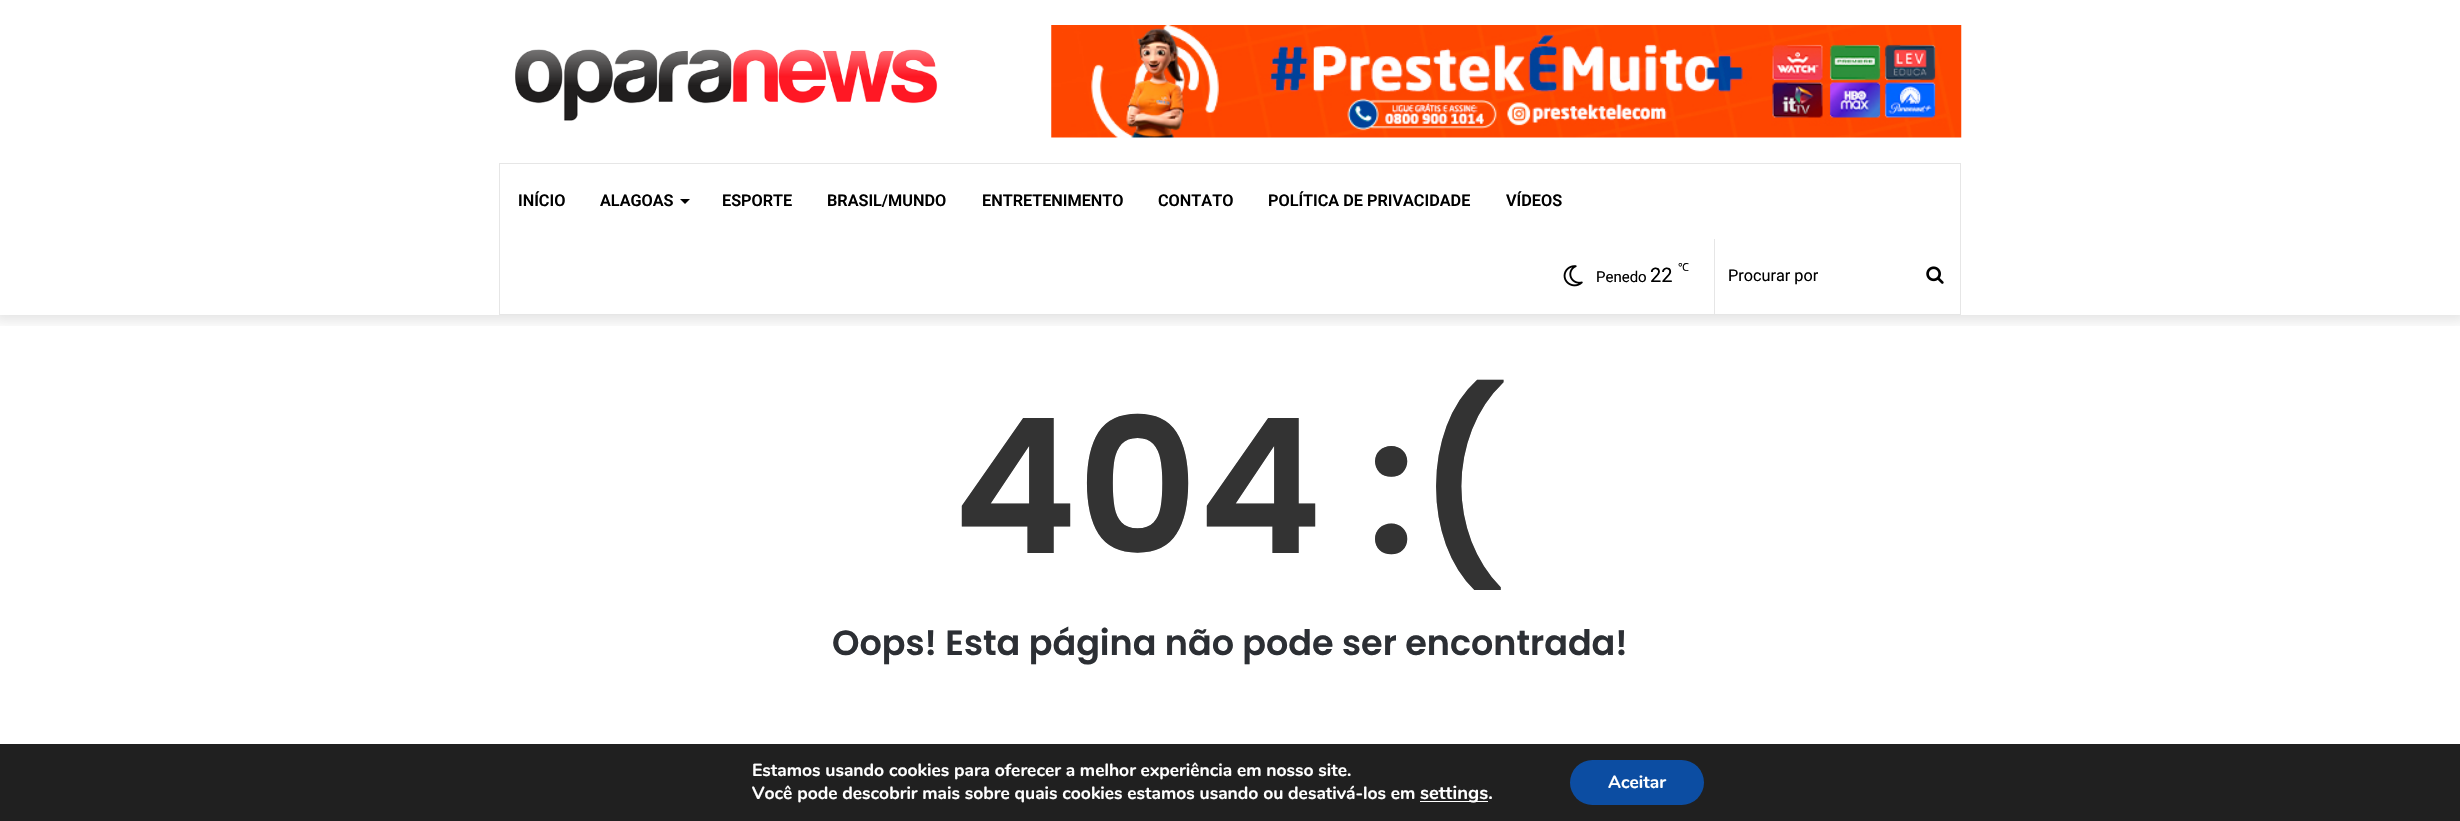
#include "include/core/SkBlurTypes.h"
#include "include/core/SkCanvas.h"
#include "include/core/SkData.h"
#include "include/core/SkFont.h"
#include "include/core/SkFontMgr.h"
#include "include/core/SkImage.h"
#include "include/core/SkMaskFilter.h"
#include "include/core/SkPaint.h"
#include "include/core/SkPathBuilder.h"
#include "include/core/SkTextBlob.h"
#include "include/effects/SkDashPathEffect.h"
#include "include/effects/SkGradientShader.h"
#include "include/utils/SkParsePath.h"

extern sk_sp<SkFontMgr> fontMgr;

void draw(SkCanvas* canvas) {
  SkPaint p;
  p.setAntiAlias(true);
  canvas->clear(SK_ColorWHITE);
  canvas->save();
  canvas->clipRect(SkRect::MakeLTRB(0, 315, 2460, 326));
  p.setColor(SkColorSetARGB(26, 0, 0, 0));
  p.setMaskFilter(SkMaskFilter::MakeBlur(kNormal_SkBlurStyle, 6));
  canvas->drawRect(SkRect::MakeLTRB(-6, -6, 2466, 321), p);
  p.setMaskFilter(nullptr);
  canvas->restore();
  canvas->drawImageRect(SkImages::DeferredFromEncodedData(SkData::MakeFromFileName("images/1.png")), SkRect::MakeLTRB(515, 49, 938, 121), SkSamplingOptions());
  canvas->drawImageRect(SkImages::DeferredFromEncodedData(SkData::MakeFromFileName("images/2.png")), SkRect::MakeLTRB(1051, 25, 1962, 138), SkSamplingOptions());
  p.setStyle(SkPaint::kStroke_Style);
  p.setStrokeWidth(1);
  p.setColor(SkColorSetRGB(230, 230, 230));
  canvas->drawRect(SkRect::MakeLTRB(499.5f, 163.5f, 1960.5f, 314.5f), p);
  p.setStyle(SkPaint::kFill_Style);
  p.setColor(SK_ColorBLACK);
  canvas->drawPath(SkPathBuilder().moveTo(680, 199).lineTo(690, 199).lineTo(685, 204).close().detach(), p);
  canvas->drawImageRect(SkImages::DeferredFromEncodedData(SkData::MakeFromFileName("images/3.png")), SkRect::MakeLTRB(1563, 265, 1583, 287), SkSamplingOptions());
  p.setColor(SkColorSetRGB(230, 230, 230));
  canvas->drawRect(SkRect::MakeLTRB(1714, 239, 1715, 314), p);
  canvas->drawImageRect(SkImages::DeferredFromEncodedData(SkData::MakeFromFileName("images/4.png")), SkRect::MakeLTRB(1926, 266, 1944, 284), SkSamplingOptions());
  p.setColor(SkColorSetRGB(32, 32, 32));
  canvas->drawRect(SkRect::MakeLTRB(0, 744, 2460, 821), p);
  p.setColor(SK_ColorWHITE);
  canvas->drawRect(SkRect::MakeLTRB(1420, 801, 1488, 802), p);
  p.setColor(SkColorSetRGB(12, 77, 162));
  canvas->drawRoundRect(SkRect::MakeLTRB(1570, 760, 1704, 805), 22.5f, 22.5f, p);
  SkFont font1(fontMgr->matchFamilyStyle("Roboto", SkFontStyle(600, SkFontStyle::kNormal_Width, SkFontStyle::kUpright_Slant)), 16.25f);
  font1.setSubpixel(true);
  p.setColor(SK_ColorBLACK);
  canvas->drawString("INÍCIO", 518, 206, font1, p);
  canvas->drawString("ALAGOAS", 600, 206, font1, p);
  canvas->drawString("ESPORTE", 722, 206, font1, p);
  canvas->drawString("BRASIL/MUNDO", 827, 206, font1, p);
  canvas->drawString("ENTRETENIMENTO", 982, 206, font1, p);
  canvas->drawString("CONTATO", 1158, 206, font1, p);
  canvas->drawString("POLÍTICA DE PRIVACIDADE", 1268, 206, font1, p);
  canvas->drawString("VÍDEOS", 1506, 206, font1, p);
  SkFont font2(fontMgr->matchFamilyStyle("Roboto", SkFontStyle::Normal()), 15);
  font2.setSubpixel(true);
  canvas->drawString("Penedo", 1596, 282, font2, p);
  SkFont font3(fontMgr->matchFamilyStyle("Roboto", SkFontStyle::Normal()), 20);
  font3.setSubpixel(true);
  canvas->drawString("22", 1650, 282, font3, p);
  SkFont font4(fontMgr->matchFamilyStyle("Noto Sans", SkFontStyle::Normal()), 11);
  font4.setSubpixel(true);
  canvas->drawString("℃", 1678, 271, font4, p);
  SkFont font5(fontMgr->matchFamilyStyle("Roboto", SkFontStyle::Normal()), 16.25f);
  font5.setSubpixel(true);
  canvas->drawString("Procurar por", 1728, 281, font5, p);
  SkFont font6(fontMgr->matchFamilyStyle("Poppins", SkFontStyle(600, SkFontStyle::kNormal_Width, SkFontStyle::kUpright_Slant)), 187.5f);
  font6.setSubpixel(true);
  p.setColor(SkColorSetRGB(51, 51, 51));
  canvas->drawString("404 :(", 953, 553, font6, p);
  SkFont font7(fontMgr->matchFamilyStyle("Poppins", SkFontStyle(600, SkFontStyle::kNormal_Width, SkFontStyle::kUpright_Slant)), 35);
  font7.setSubpixel(true);
  p.setColor(SkColorSetRGB(44, 47, 52));
  canvas->drawString("Oops! Esta página não pode ser encontrada!", 832, 655, font7, p);
  SkFont font8(fontMgr->matchFamilyStyle("Nunito", SkFontStyle::Bold()), 17.5f);
  font8.setSubpixel(true);
  p.setColor(SK_ColorWHITE);
  canvas->drawString("Estamos usando cookies para oferecer a melhor experiência em nosso site.", 752, 776, font8, p);
  canvas->drawString("Você pode descobrir mais sobre quais cookies estamos usando ou desativá-los em", 752, 799, font8, p);
  SkFont font9(fontMgr->matchFamilyStyle("Nunito", SkFontStyle::Bold()), 18.5f);
  font9.setSubpixel(true);
  canvas->drawString("settings.", 1420, 799, font9, p);
  canvas->drawString("Aceitar", 1608, 788, font8, p);
}
